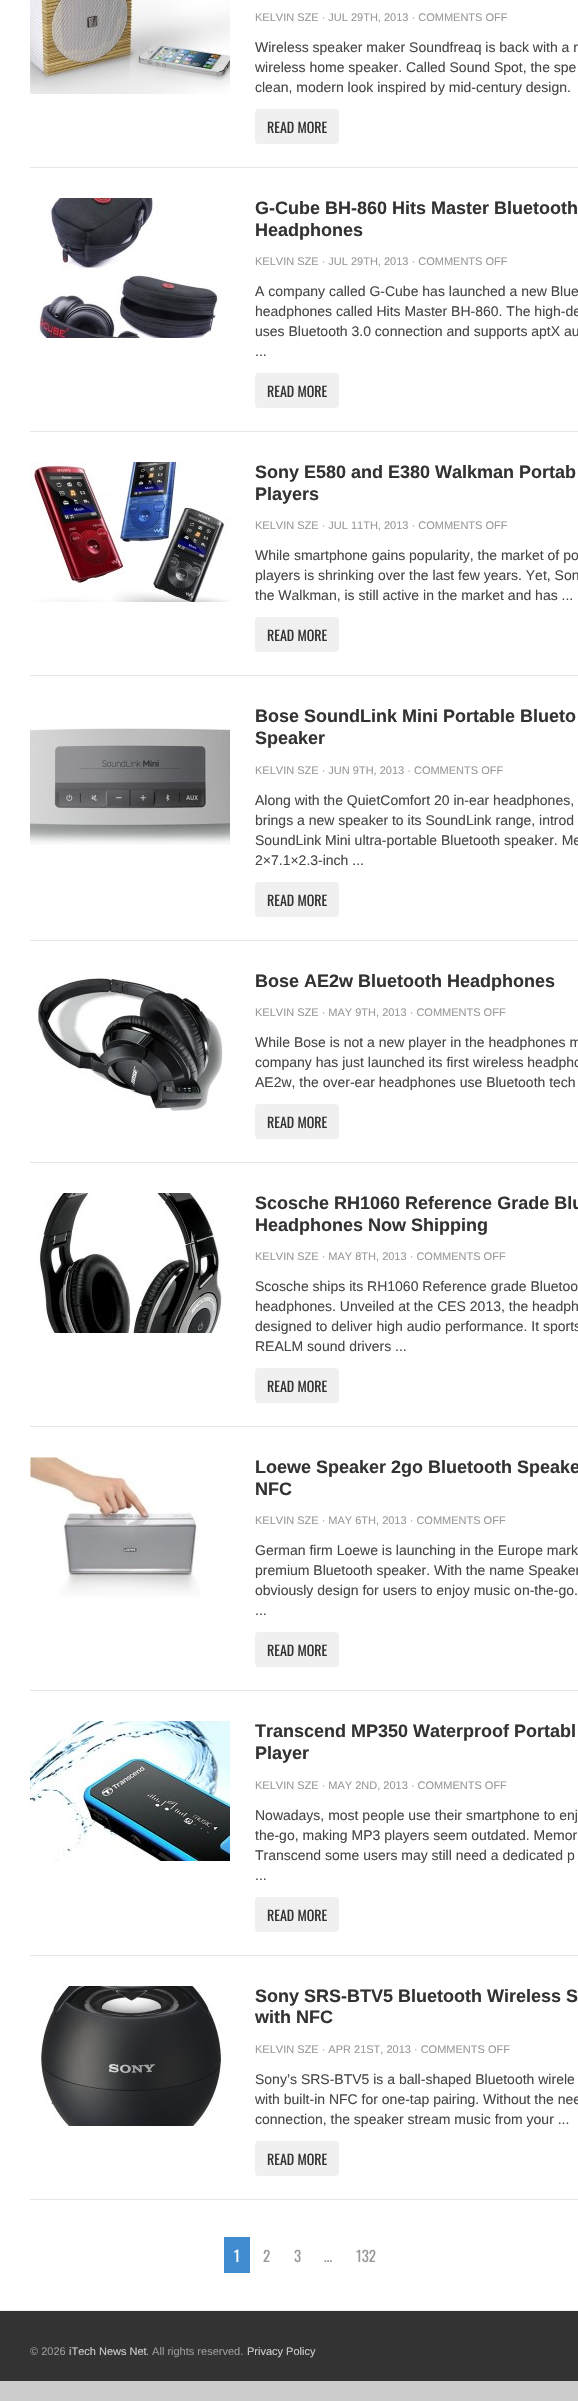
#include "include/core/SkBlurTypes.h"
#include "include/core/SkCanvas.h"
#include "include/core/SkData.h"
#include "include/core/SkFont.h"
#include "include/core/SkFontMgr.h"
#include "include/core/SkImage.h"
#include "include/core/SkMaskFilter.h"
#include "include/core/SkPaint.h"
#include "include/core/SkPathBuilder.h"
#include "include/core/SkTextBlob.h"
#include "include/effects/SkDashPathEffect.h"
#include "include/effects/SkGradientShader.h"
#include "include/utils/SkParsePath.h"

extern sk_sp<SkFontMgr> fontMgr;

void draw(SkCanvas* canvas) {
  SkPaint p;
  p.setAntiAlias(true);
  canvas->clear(SkColorSetRGB(204, 204, 204));
  p.setColor(SK_ColorWHITE);
  canvas->drawRect(SkRect::MakeLTRB(0, 0, 578, 2310), p);
  p.setColor(SkColorSetRGB(230, 230, 230));
  canvas->drawRect(SkRect::MakeLTRB(30, 167, 578, 168), p);
  canvas->drawImageRect(SkImages::DeferredFromEncodedData(SkData::MakeFromFileName("images/1.png")), SkRect::MakeLTRB(30, 0, 230, 94), SkSamplingOptions());
  p.setColor(SkColorSetRGB(240, 240, 240));
  canvas->drawRoundRect(SkRect::MakeLTRB(255, 109, 339, 144), 4, 4, p);
  p.setColor(SkColorSetRGB(230, 230, 230));
  canvas->drawRect(SkRect::MakeLTRB(30, 431, 578, 432), p);
  canvas->drawImageRect(SkImages::DeferredFromEncodedData(SkData::MakeFromFileName("images/2.png")), SkRect::MakeLTRB(30, 198, 222, 338), SkSamplingOptions());
  p.setColor(SkColorSetRGB(240, 240, 240));
  canvas->drawRoundRect(SkRect::MakeLTRB(255, 373, 339, 408), 4, 4, p);
  p.setColor(SkColorSetRGB(230, 230, 230));
  canvas->drawRect(SkRect::MakeLTRB(30, 675, 578, 676), p);
  canvas->drawImageRect(SkImages::DeferredFromEncodedData(SkData::MakeFromFileName("images/3.png")), SkRect::MakeLTRB(30, 462, 230, 602), SkSamplingOptions());
  p.setColor(SkColorSetRGB(240, 240, 240));
  canvas->drawRoundRect(SkRect::MakeLTRB(255, 617, 339, 652), 4, 4, p);
  p.setColor(SkColorSetRGB(230, 230, 230));
  canvas->drawRect(SkRect::MakeLTRB(30, 940, 578, 941), p);
  canvas->drawImageRect(SkImages::DeferredFromEncodedData(SkData::MakeFromFileName("images/4.png")), SkRect::MakeLTRB(30, 728, 230, 845), SkSamplingOptions());
  p.setColor(SkColorSetRGB(240, 240, 240));
  canvas->drawRoundRect(SkRect::MakeLTRB(255, 882, 339, 917), 4, 4, p);
  p.setColor(SkColorSetRGB(230, 230, 230));
  canvas->drawRect(SkRect::MakeLTRB(30, 1162, 578, 1163), p);
  canvas->drawImageRect(SkImages::DeferredFromEncodedData(SkData::MakeFromFileName("images/5.png")), SkRect::MakeLTRB(38, 977, 223, 1111), SkSamplingOptions());
  p.setColor(SkColorSetRGB(240, 240, 240));
  canvas->drawRoundRect(SkRect::MakeLTRB(255, 1104, 339, 1139), 4, 4, p);
  p.setColor(SkColorSetRGB(230, 230, 230));
  canvas->drawRect(SkRect::MakeLTRB(30, 1426, 578, 1427), p);
  canvas->drawImageRect(SkImages::DeferredFromEncodedData(SkData::MakeFromFileName("images/6.png")), SkRect::MakeLTRB(38, 1193, 222, 1333), SkSamplingOptions());
  p.setColor(SkColorSetRGB(240, 240, 240));
  canvas->drawRoundRect(SkRect::MakeLTRB(255, 1368, 339, 1403), 4, 4, p);
  p.setColor(SkColorSetRGB(230, 230, 230));
  canvas->drawRect(SkRect::MakeLTRB(30, 1690, 578, 1691), p);
  canvas->drawImageRect(SkImages::DeferredFromEncodedData(SkData::MakeFromFileName("images/7.png")), SkRect::MakeLTRB(30, 1457, 200, 1597), SkSamplingOptions());
  p.setColor(SkColorSetRGB(240, 240, 240));
  canvas->drawRoundRect(SkRect::MakeLTRB(255, 1632, 339, 1667), 4, 4, p);
  p.setColor(SkColorSetRGB(230, 230, 230));
  canvas->drawRect(SkRect::MakeLTRB(30, 1955, 578, 1956), p);
  canvas->drawImageRect(SkImages::DeferredFromEncodedData(SkData::MakeFromFileName("images/8.png")), SkRect::MakeLTRB(30, 1721, 230, 1861), SkSamplingOptions());
  p.setColor(SkColorSetRGB(240, 240, 240));
  canvas->drawRoundRect(SkRect::MakeLTRB(255, 1897, 339, 1932), 4, 4, p);
  p.setColor(SkColorSetRGB(230, 230, 230));
  canvas->drawRect(SkRect::MakeLTRB(30, 2199, 578, 2200), p);
  canvas->drawImageRect(SkImages::DeferredFromEncodedData(SkData::MakeFromFileName("images/9.png")), SkRect::MakeLTRB(39, 1986, 222, 2126), SkSamplingOptions());
  p.setColor(SkColorSetRGB(240, 240, 240));
  canvas->drawRoundRect(SkRect::MakeLTRB(255, 2141, 339, 2176), 4, 4, p);
  p.setColor(SkColorSetRGB(65, 140, 209));
  canvas->drawRect(SkRect::MakeLTRB(224, 2237, 250, 2273), p);
  p.setColor(SkColorSetRGB(51, 51, 51));
  canvas->drawRect(SkRect::MakeLTRB(0, 2311, 578, 2381), p);
  p.setColor(SkColorSetRGB(239, 239, 239));
  canvas->drawRect(SkRect::MakeLTRB(0, 2310, 578, 2311), p);
  SkFont font1(fontMgr->matchFamilyStyle("Liberation Sans", SkFontStyle::Normal()), 11);
  font1.setSubpixel(true);
  p.setColor(SkColorSetRGB(153, 153, 153));
  canvas->drawString("KELVIN SZE · JUL 29TH, 2013 · COMMENTS OFF", 255, 21, font1, p);
  SkFont font2(fontMgr->matchFamilyStyle("Liberation Sans", SkFontStyle::Normal()), 14);
  font2.setSubpixel(true);
  p.setColor(SkColorSetRGB(71, 71, 71));
  canvas->drawString("Wireless speaker maker Soundfreaq is back with a n", 255, 52, font2, p);
  canvas->drawString("wireless home speaker. Called Sound Spot, the spe", 255, 72, font2, p);
  canvas->drawString("clean, modern look inspired by mid-century design.", 255, 92, font2, p);
  SkFont font3(fontMgr->matchFamilyStyle("Oswald", SkFontStyle::Normal()), 14);
  font3.setSubpixel(true);
  p.setColor(SkColorSetRGB(51, 51, 51));
  canvas->drawString("READ MORE", 267, 133, font3, p);
  SkFont font4(fontMgr->matchFamilyStyle("Liberation Sans", SkFontStyle::Bold()), 18);
  font4.setSubpixel(true);
  canvas->drawString("G-Cube BH-860 Hits Master Bluetooth", 255, 214, font4, p);
  canvas->drawString("Headphones", 255, 236, font4, p);
  p.setColor(SkColorSetRGB(153, 153, 153));
  canvas->drawString("KELVIN SZE · JUL 29TH, 2013 · COMMENTS OFF", 255, 265, font1, p);
  p.setColor(SkColorSetRGB(71, 71, 71));
  canvas->drawString("A company called G-Cube has launched a new Blue", 255, 296, font2, p);
  canvas->drawString("headphones called Hits Master BH-860. The high-de", 255, 316, font2, p);
  canvas->drawString("uses Bluetooth 3.0 connection and supports aptX au", 255, 336, font2, p);
  canvas->drawString("...", 255, 356, font2, p);
  p.setColor(SkColorSetRGB(51, 51, 51));
  canvas->drawString("READ MORE", 267, 397, font3, p);
  canvas->drawString("Sony E580 and E380 Walkman Portab", 255, 478, font4, p);
  canvas->drawString("Players", 255, 500, font4, p);
  p.setColor(SkColorSetRGB(153, 153, 153));
  canvas->drawString("KELVIN SZE · JUL 11TH, 2013 · COMMENTS OFF", 255, 529, font1, p);
  p.setColor(SkColorSetRGB(71, 71, 71));
  canvas->drawString("While smartphone gains popularity, the market of po", 255, 560, font2, p);
  canvas->drawString("players is shrinking over the last few years. Yet, Son", 255, 580, font2, p);
  canvas->drawString("the Walkman, is still active in the market and has ...", 255, 600, font2, p);
  p.setColor(SkColorSetRGB(51, 51, 51));
  canvas->drawString("READ MORE", 267, 641, font3, p);
  canvas->drawString("Bose SoundLink Mini Portable Blueto", 255, 722, font4, p);
  canvas->drawString("Speaker", 255, 744, font4, p);
  p.setColor(SkColorSetRGB(153, 153, 153));
  canvas->drawString("KELVIN SZE · JUN 9TH, 2013 · COMMENTS OFF", 255, 774, font1, p);
  p.setColor(SkColorSetRGB(71, 71, 71));
  canvas->drawString("Along with the QuietComfort 20 in-ear headphones,", 255, 805, font2, p);
  canvas->drawString("brings a new speaker to its SoundLink range, introd", 255, 825, font2, p);
  canvas->drawString("SoundLink Mini ultra-portable Bluetooth speaker. Me", 255, 845, font2, p);
  canvas->drawString("2×7.1×2.3-inch ...", 255, 865, font2, p);
  p.setColor(SkColorSetRGB(51, 51, 51));
  canvas->drawString("READ MORE", 267, 906, font3, p);
  canvas->drawString("Bose AE2w Bluetooth Headphones", 255, 987, font4, p);
  p.setColor(SkColorSetRGB(153, 153, 153));
  canvas->drawString("KELVIN SZE · MAY 9TH, 2013 · COMMENTS OFF", 255, 1016, font1, p);
  p.setColor(SkColorSetRGB(71, 71, 71));
  canvas->drawString("While Bose is not a new player in the headphones m", 255, 1047, font2, p);
  canvas->drawString("company has just launched its first wireless headpho", 255, 1067, font2, p);
  canvas->drawString("AE2w, the over-ear headphones use Bluetooth tech", 255, 1087, font2, p);
  p.setColor(SkColorSetRGB(51, 51, 51));
  canvas->drawString("READ MORE", 267, 1128, font3, p);
  canvas->drawString("Scosche RH1060 Reference Grade Blu", 255, 1209, font4, p);
  canvas->drawString("Headphones Now Shipping", 255, 1231, font4, p);
  p.setColor(SkColorSetRGB(153, 153, 153));
  canvas->drawString("KELVIN SZE · MAY 8TH, 2013 · COMMENTS OFF", 255, 1260, font1, p);
  p.setColor(SkColorSetRGB(71, 71, 71));
  canvas->drawString("Scosche ships its RH1060 Reference grade Bluetoo", 255, 1291, font2, p);
  canvas->drawString("headphones. Unveiled at the CES 2013, the headph", 255, 1311, font2, p);
  canvas->drawString("designed to deliver high audio performance. It sports", 255, 1331, font2, p);
  canvas->drawString("REALM sound drivers ...", 255, 1351, font2, p);
  p.setColor(SkColorSetRGB(51, 51, 51));
  canvas->drawString("READ MORE", 267, 1392, font3, p);
  canvas->drawString("Loewe Speaker 2go Bluetooth Speake", 255, 1473, font4, p);
  canvas->drawString("NFC", 255, 1495, font4, p);
  p.setColor(SkColorSetRGB(153, 153, 153));
  canvas->drawString("KELVIN SZE · MAY 6TH, 2013 · COMMENTS OFF", 255, 1524, font1, p);
  p.setColor(SkColorSetRGB(71, 71, 71));
  canvas->drawString("German firm Loewe is launching in the Europe mark", 255, 1555, font2, p);
  canvas->drawString("premium Bluetooth speaker. With the name Speaker", 255, 1575, font2, p);
  canvas->drawString("obviously design for users to enjoy music on-the-go.", 255, 1595, font2, p);
  canvas->drawString("...", 255, 1615, font2, p);
  p.setColor(SkColorSetRGB(51, 51, 51));
  canvas->drawString("READ MORE", 267, 1656, font3, p);
  canvas->drawString("Transcend MP350 Waterproof Portabl", 255, 1737, font4, p);
  canvas->drawString("Player", 255, 1759, font4, p);
  p.setColor(SkColorSetRGB(153, 153, 153));
  canvas->drawString("KELVIN SZE · MAY 2ND, 2013 · COMMENTS OFF", 255, 1789, font1, p);
  p.setColor(SkColorSetRGB(71, 71, 71));
  canvas->drawString("Nowadays, most people use their smartphone to enj", 255, 1820, font2, p);
  canvas->drawString("the-go, making MP3 players seem outdated. Memor", 255, 1840, font2, p);
  canvas->drawString("Transcend some users may still need a dedicated p", 255, 1860, font2, p);
  canvas->drawString("...", 255, 1880, font2, p);
  p.setColor(SkColorSetRGB(51, 51, 51));
  canvas->drawString("READ MORE", 267, 1921, font3, p);
  canvas->drawString("Sony SRS-BTV5 Bluetooth Wireless S", 255, 2002, font4, p);
  canvas->drawString("with NFC", 255, 2023, font4, p);
  p.setColor(SkColorSetRGB(153, 153, 153));
  canvas->drawString("KELVIN SZE · APR 21ST, 2013 · COMMENTS OFF", 255, 2053, font1, p);
  p.setColor(SkColorSetRGB(71, 71, 71));
  canvas->drawString("Sony’s SRS-BTV5 is a ball-shaped Bluetooth wirele", 255, 2084, font2, p);
  canvas->drawString("with built-in NFC for one-tap pairing. Without the nee", 255, 2104, font2, p);
  canvas->drawString("connection, the speaker stream music from your ...", 255, 2124, font2, p);
  p.setColor(SkColorSetRGB(51, 51, 51));
  canvas->drawString("READ MORE", 267, 2165, font3, p);
  SkFont font5(fontMgr->matchFamilyStyle("Oswald", SkFontStyle::Normal()), 15);
  font5.setSubpixel(true);
  p.setColor(SK_ColorWHITE);
  canvas->drawString("1", 234, 2262, font5, p);
  p.setColor(SkColorSetRGB(153, 153, 153));
  canvas->drawString("2", 263, 2262, font5, p);
  canvas->drawString("3", 294, 2262, font5, p);
  canvas->drawString("…", 324, 2262, font5, p);
  canvas->drawString("132", 356, 2262, font5, p);
  canvas->drawString("© 2026", 30, 2355, font1, p);
  p.setColor(SkColorSetRGB(204, 204, 204));
  canvas->drawString("iTech News Net", 69, 2355, font1, p);
  p.setColor(SkColorSetRGB(153, 153, 153));
  canvas->drawString(". All rights reserved.", 146, 2355, font1, p);
  p.setColor(SkColorSetRGB(204, 204, 204));
  canvas->drawString("Privacy Policy", 247, 2355, font1, p);
}
